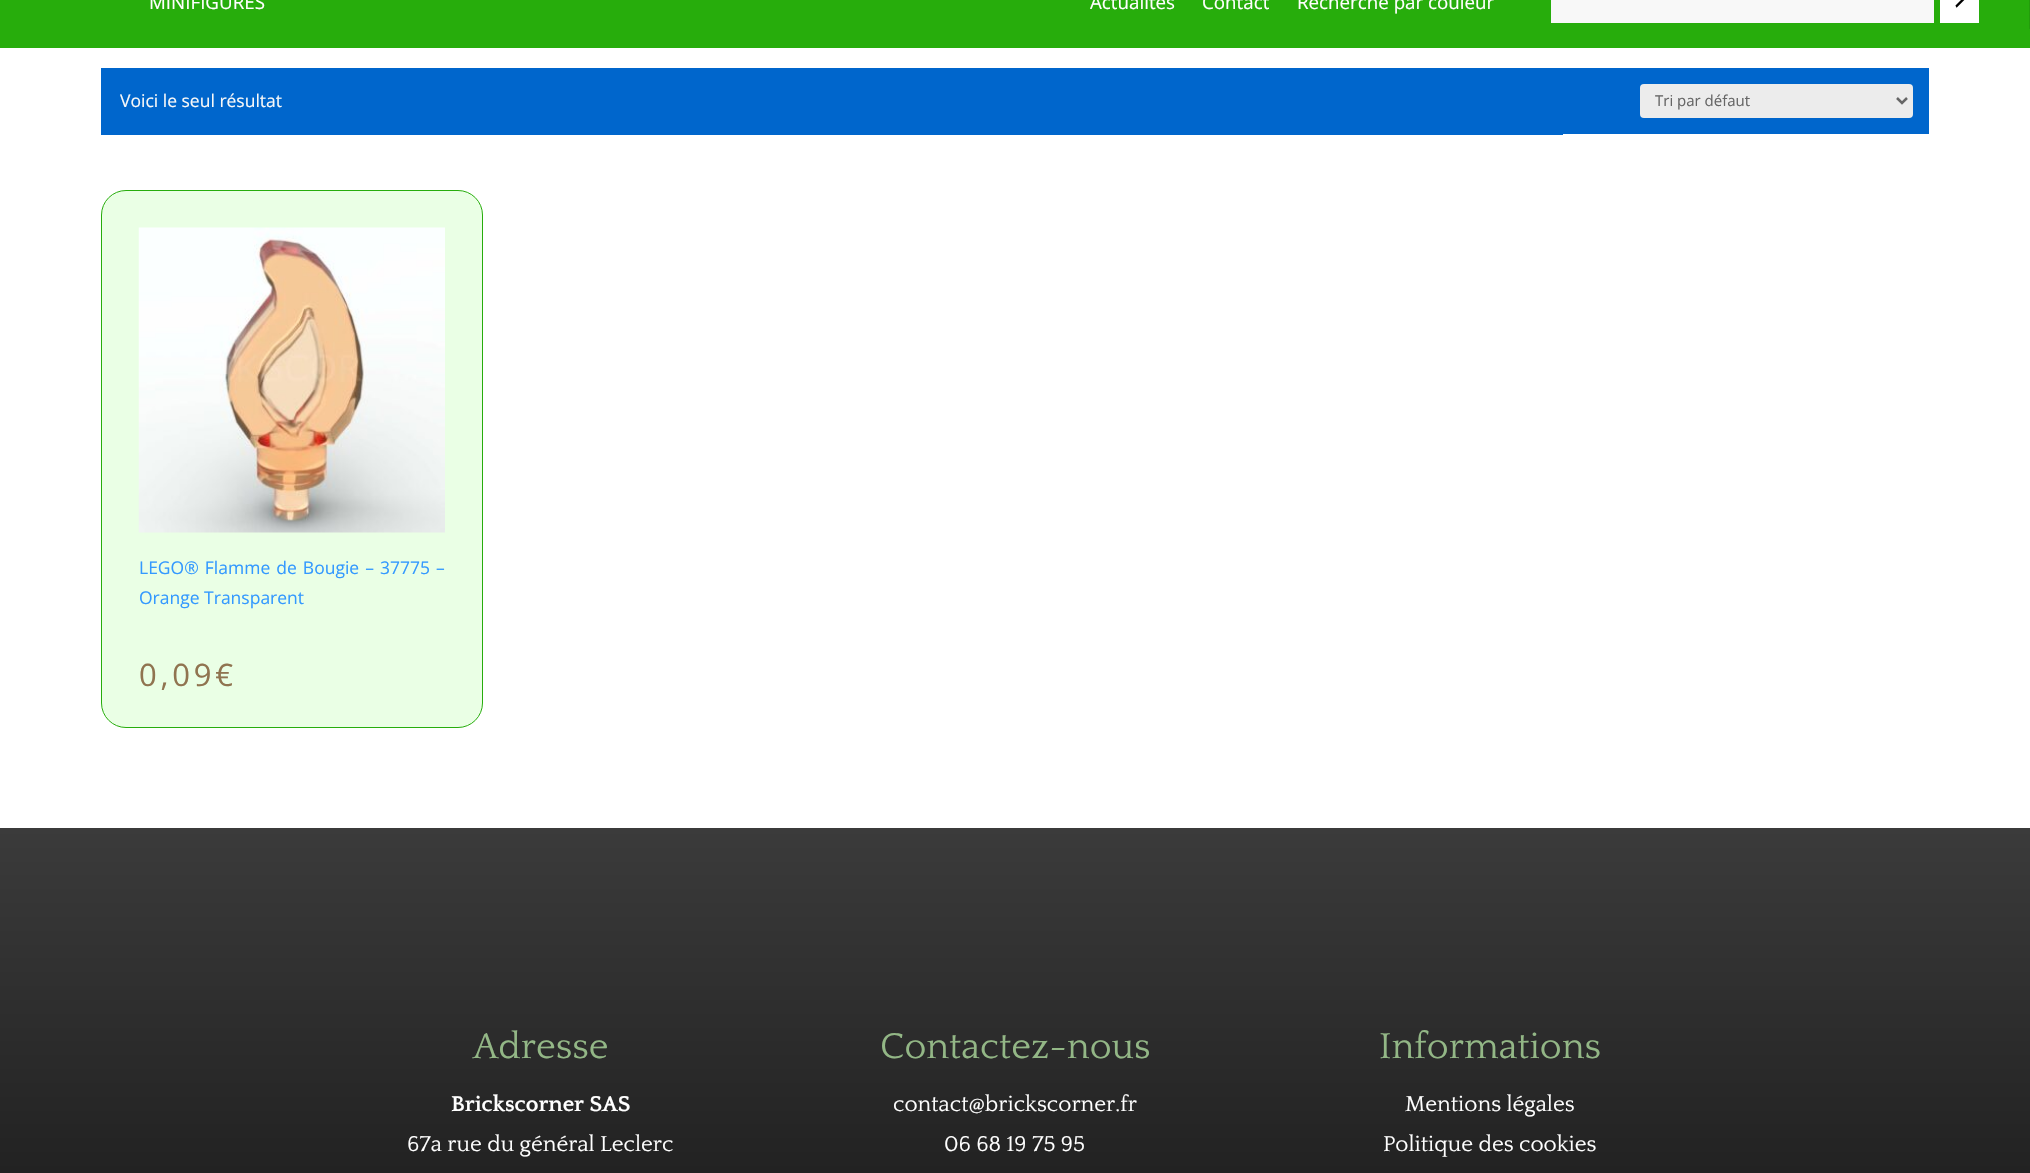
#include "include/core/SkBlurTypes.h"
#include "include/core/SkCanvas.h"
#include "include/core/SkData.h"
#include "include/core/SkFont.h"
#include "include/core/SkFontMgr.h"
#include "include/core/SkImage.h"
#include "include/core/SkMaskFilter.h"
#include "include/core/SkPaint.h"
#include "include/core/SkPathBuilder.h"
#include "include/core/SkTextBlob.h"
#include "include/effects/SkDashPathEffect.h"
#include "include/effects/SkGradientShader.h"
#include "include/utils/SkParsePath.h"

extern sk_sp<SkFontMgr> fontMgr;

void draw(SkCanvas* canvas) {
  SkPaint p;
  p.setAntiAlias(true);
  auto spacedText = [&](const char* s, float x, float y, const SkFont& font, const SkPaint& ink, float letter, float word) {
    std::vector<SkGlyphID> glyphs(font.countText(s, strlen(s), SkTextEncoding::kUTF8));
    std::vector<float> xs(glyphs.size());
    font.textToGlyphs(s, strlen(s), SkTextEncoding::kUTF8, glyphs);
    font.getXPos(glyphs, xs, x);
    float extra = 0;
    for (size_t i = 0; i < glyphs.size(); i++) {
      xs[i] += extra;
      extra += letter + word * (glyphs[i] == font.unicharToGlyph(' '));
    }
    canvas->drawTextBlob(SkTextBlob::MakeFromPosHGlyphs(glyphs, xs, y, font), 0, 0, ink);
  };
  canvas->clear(SK_ColorWHITE);
  p.setColor(SkColorSetRGB(39, 173, 12));
  canvas->drawRect(SkRect::MakeLTRB(0, 0, 2030, 48), p);
  p.setColor(SkColorSetRGB(35, 156, 11));
  canvas->drawRect(SkRect::MakeLTRB(2029, 0, 2030, 29), p);
  p.setColor(SkColorSetRGB(248, 248, 248));
  canvas->drawRect(SkRect::MakeLTRB(1551, 0, 1934, 23), p);
  p.setColor(SK_ColorWHITE);
  canvas->drawRect(SkRect::MakeLTRB(1940, 0, 1979, 23), p);
  canvas->drawImageRect(SkImages::DeferredFromEncodedData(SkData::MakeFromFileName("images/1.png")), SkRect::MakeLTRB(1955, 0, 1965, 8), SkSamplingOptions());
  p.setColor(SkColorSetRGB(0, 102, 204));
  canvas->drawRect(SkRect::MakeLTRB(101, 68, 1563, 135), p);
  canvas->drawRect(SkRect::MakeLTRB(1563, 68, 1929, 134), p);
  p.setColor(SkColorSetRGB(236, 236, 236));
  canvas->drawRoundRect(SkRect::MakeLTRB(1640, 84, 1913, 118), 4, 4, p);
  p.setStyle(SkPaint::kStroke_Style);
  p.setStrokeWidth(2.5f);
  p.setColor(SkColorSetRGB(102, 102, 102));
  canvas->drawPath(SkPathBuilder().moveTo(1897, 98).lineTo(1902, 103).lineTo(1907, 98).detach(), p);
  p.setStyle(SkPaint::kFill_Style);
  p.setColor(SkColorSetRGB(234, 255, 229));
  canvas->drawRoundRect(SkRect::MakeLTRB(101.5f, 190.5f, 482.5f, 727.5f), 24.5f, 24.5f, p);
  p.setStyle(SkPaint::kStroke_Style);
  p.setStrokeWidth(1);
  p.setColor(SkColorSetRGB(39, 173, 12));
  canvas->drawRoundRect(SkRect::MakeLTRB(101.5f, 190.5f, 482.5f, 727.5f), 24.5f, 24.5f, p);
  canvas->drawImageRect(SkImages::DeferredFromEncodedData(SkData::MakeFromFileName("images/2.png")), SkRect::MakeLTRB(138, 227, 445, 533), SkSamplingOptions());
  p.setStyle(SkPaint::kFill_Style);
  {
    const SkColor colors[] = {SkColorSetRGB(59, 59, 59), SK_ColorBLACK};
    const float stops[] = {0, 1};
    const SkPoint ends[] = {{1015, 827}, {1015, 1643}};
    p.setShader(SkGradientShader::MakeLinear(ends, colors, stops, 2, SkTileMode::kClamp));
    p.setAlpha(255);
  }
  canvas->drawRect(SkRect::MakeLTRB(0, 828, 2030, 1173), p);
  SkFont font1(fontMgr->matchFamilyStyle("Open Sans", SkFontStyle::Normal()), 18.75f);
  font1.setSubpixel(true);
  p.setShader(nullptr);
  p.setColor(SK_ColorWHITE);
  canvas->drawString("MINIFIGURES", 149, 9, font1, p);
  canvas->drawString("Actualités", 1090, 9, font1, p);
  canvas->drawString("Contact", 1202, 9, font1, p);
  canvas->drawString("Recherche par couleur", 1297, 9, font1, p);
  SkFont font2(fontMgr->matchFamilyStyle("Open Sans", SkFontStyle::Normal()), 17.5f);
  font2.setSubpixel(true);
  p.setColor(SkColorSetRGB(248, 248, 248));
  canvas->drawString("Voici le seul résultat", 120, 107, font2, p);
  SkFont font3(fontMgr->matchFamilyStyle("Open Sans", SkFontStyle::Normal()), 15);
  font3.setSubpixel(true);
  p.setColor(SkColorSetRGB(102, 102, 102));
  canvas->drawString("Tri par défaut", 1655, 106, font3, p);
  p.setColor(SkColorSetRGB(51, 153, 255));
  spacedText("LEGO® Flamme de Bougie – 37775 –", 139, 574, font2, p, 0, 1.5f);
  canvas->drawString("Orange Transparent", 139, 604, font2, p);
  SkFont font4(fontMgr->matchFamilyStyle("Open Sans", SkFontStyle::Normal()), 31);
  font4.setSubpixel(true);
  p.setColor(SkColorSetRGB(144, 116, 80));
  spacedText("0,09€", 139, 686, font4, p, 3.75f, 0);
  SkFont font5(fontMgr->matchFamilyStyle("Quattrocento", SkFontStyle::Normal()), 37.5f);
  font5.setSubpixel(true);
  p.setColor(SkColorSetRGB(147, 183, 134));
  canvas->drawString("Adresse", 473, 1058, font5, p);
  SkFont font6(fontMgr->matchFamilyStyle("Quattrocento", SkFontStyle::Bold()), 22.5f);
  font6.setSubpixel(true);
  p.setColor(SK_ColorWHITE);
  canvas->drawString("Brickscorner SAS", 451, 1111, font6, p);
  SkFont font7(fontMgr->matchFamilyStyle("Quattrocento", SkFontStyle::Normal()), 22.5f);
  font7.setSubpixel(true);
  canvas->drawString("67a rue du général Leclerc", 407, 1151, font7, p);
  p.setColor(SkColorSetRGB(147, 183, 134));
  canvas->drawString("Contactez-nous", 880, 1058, font5, p);
  p.setColor(SK_ColorWHITE);
  canvas->drawString("contact@brickscorner.fr", 893, 1111, font7, p);
  canvas->drawString("06 68 19 75 95", 944, 1151, font7, p);
  p.setColor(SkColorSetRGB(147, 183, 134));
  canvas->drawString("Informations", 1379, 1058, font5, p);
  p.setColor(SK_ColorWHITE);
  canvas->drawString("Mentions légales", 1405, 1111, font7, p);
  canvas->drawString("Politique des cookies", 1383, 1151, font7, p);
}
